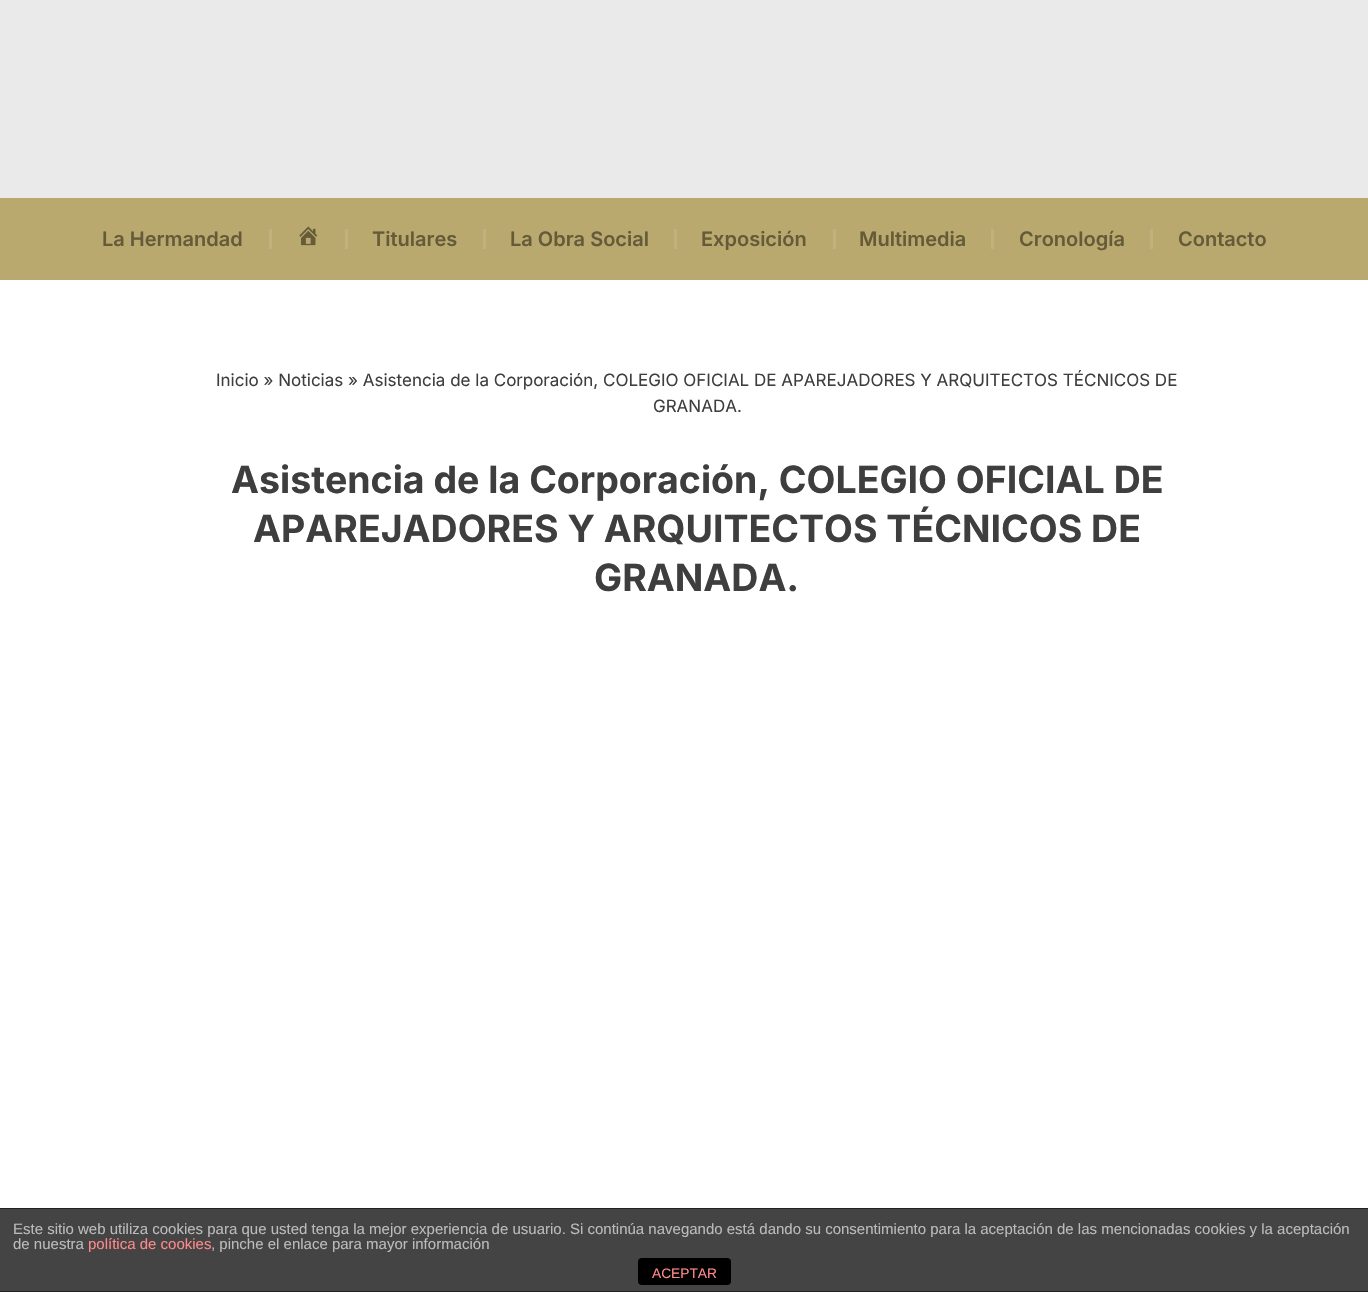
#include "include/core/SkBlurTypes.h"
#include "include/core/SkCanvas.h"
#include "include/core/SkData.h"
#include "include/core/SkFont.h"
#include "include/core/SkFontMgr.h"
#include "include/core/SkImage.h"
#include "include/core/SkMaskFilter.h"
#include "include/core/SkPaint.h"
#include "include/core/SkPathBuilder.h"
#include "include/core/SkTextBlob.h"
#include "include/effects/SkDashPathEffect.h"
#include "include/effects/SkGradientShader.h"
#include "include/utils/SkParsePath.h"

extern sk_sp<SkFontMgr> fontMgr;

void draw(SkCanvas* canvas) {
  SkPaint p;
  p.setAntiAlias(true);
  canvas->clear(SK_ColorWHITE);
  p.setColor(SkColorSetRGB(234, 234, 234));
  canvas->drawRect(SkRect::MakeLTRB(0, 0, 1368, 198), p);
  p.setColor(SkColorSetRGB(186, 169, 111));
  canvas->drawRect(SkRect::MakeLTRB(0, 198, 1368, 280), p);
  p.setColor(SkColorSetRGB(193, 177, 125));
  canvas->drawRect(SkRect::MakeLTRB(269, 229, 272, 249), p);
  canvas->drawImageRect(SkImages::DeferredFromEncodedData(SkData::MakeFromFileName("images/1.png")), SkRect::MakeLTRB(299, 226, 318, 246), SkSamplingOptions());
  canvas->drawRect(SkRect::MakeLTRB(345, 229, 348, 249), p);
  canvas->drawRect(SkRect::MakeLTRB(483, 229, 486, 249), p);
  canvas->drawRect(SkRect::MakeLTRB(674, 229, 677, 249), p);
  canvas->drawRect(SkRect::MakeLTRB(833, 229, 836, 249), p);
  canvas->drawRect(SkRect::MakeLTRB(991, 229, 994, 249), p);
  canvas->drawRect(SkRect::MakeLTRB(1150, 229, 1153, 249), p);
  p.setColor(SkColorSetRGB(68, 68, 68));
  canvas->drawRect(SkRect::MakeLTRB(0, 1209, 1368, 1291), p);
  p.setColor(SkColorSetRGB(34, 34, 34));
  canvas->drawRect(SkRect::MakeLTRB(0, 1208, 1368, 1209), p);
  canvas->drawRect(SkRect::MakeLTRB(0, 1291, 1368, 1292), p);
  p.setColor(SK_ColorBLACK);
  canvas->drawRoundRect(SkRect::MakeLTRB(638, 1258, 731, 1285), 4, 4, p);
  SkFont font1(fontMgr->matchFamilyStyle("Inter", SkFontStyle(600, SkFontStyle::kNormal_Width, SkFontStyle::kUpright_Slant)), 20);
  font1.setSubpixel(true);
  p.setColor(SkColorSetRGB(101, 91, 57));
  canvas->drawString("La Hermandad", 102, 246, font1, p);
  canvas->drawString("Titulares", 372, 246, font1, p);
  canvas->drawString("La Obra Social", 510, 246, font1, p);
  canvas->drawString("Exposición", 701, 246, font1, p);
  canvas->drawString("Multimedia", 859, 246, font1, p);
  canvas->drawString("Cronología", 1019, 246, font1, p);
  canvas->drawString("Contacto", 1178, 246, font1, p);
  SkFont font2(fontMgr->matchFamilyStyle("Inter", SkFontStyle::Normal()), 17);
  font2.setSubpixel(true);
  p.setColor(SkColorSetRGB(62, 62, 62));
  canvas->drawString("Inicio » Noticias » Asistencia de la Corporación, COLEGIO OFICIAL DE APAREJADORES Y ARQUITECTOS TÉCNICOS DE", 216, 386, font2, p);
  canvas->drawString("GRANADA.", 653, 412, font2, p);
  SkFont font3(fontMgr->matchFamilyStyle("Inter", SkFontStyle::Bold()), 37.5f);
  font3.setSubpixel(true);
  canvas->drawString("Asistencia de la Corporación, COLEGIO OFICIAL DE", 231, 493, font3, p);
  canvas->drawString("APAREJADORES Y ARQUITECTOS TÉCNICOS DE", 253, 542, font3, p);
  canvas->drawString("GRANADA.", 594, 591, font3, p);
  SkFont font4(fontMgr->matchFamilyStyle("Liberation Sans", SkFontStyle::Normal()), 15);
  font4.setSubpixel(true);
  p.setColor(SkColorSetRGB(187, 187, 187));
  canvas->drawString("Este sitio web utiliza cookies para que usted tenga la mejor experiencia de usuario. Si continúa navegando está dando su consentimiento para la aceptación de las mencionadas cookies y la aceptación", 13, 1234, font4, p);
  canvas->drawString("de nuestra", 13, 1249, font4, p);
  p.setColor(SkColorSetRGB(255, 136, 136));
  canvas->drawString("política de cookies", 88, 1249, font4, p);
  p.setColor(SkColorSetRGB(187, 187, 187));
  canvas->drawString(", pinche el enlace para mayor información", 211, 1249, font4, p);
  SkFont font5(fontMgr->matchFamilyStyle("Liberation Sans", SkFontStyle::Normal()), 13.75f);
  font5.setSubpixel(true);
  p.setColor(SkColorSetRGB(255, 136, 136));
  canvas->drawString("ACEPTAR", 652, 1278, font5, p);
}
